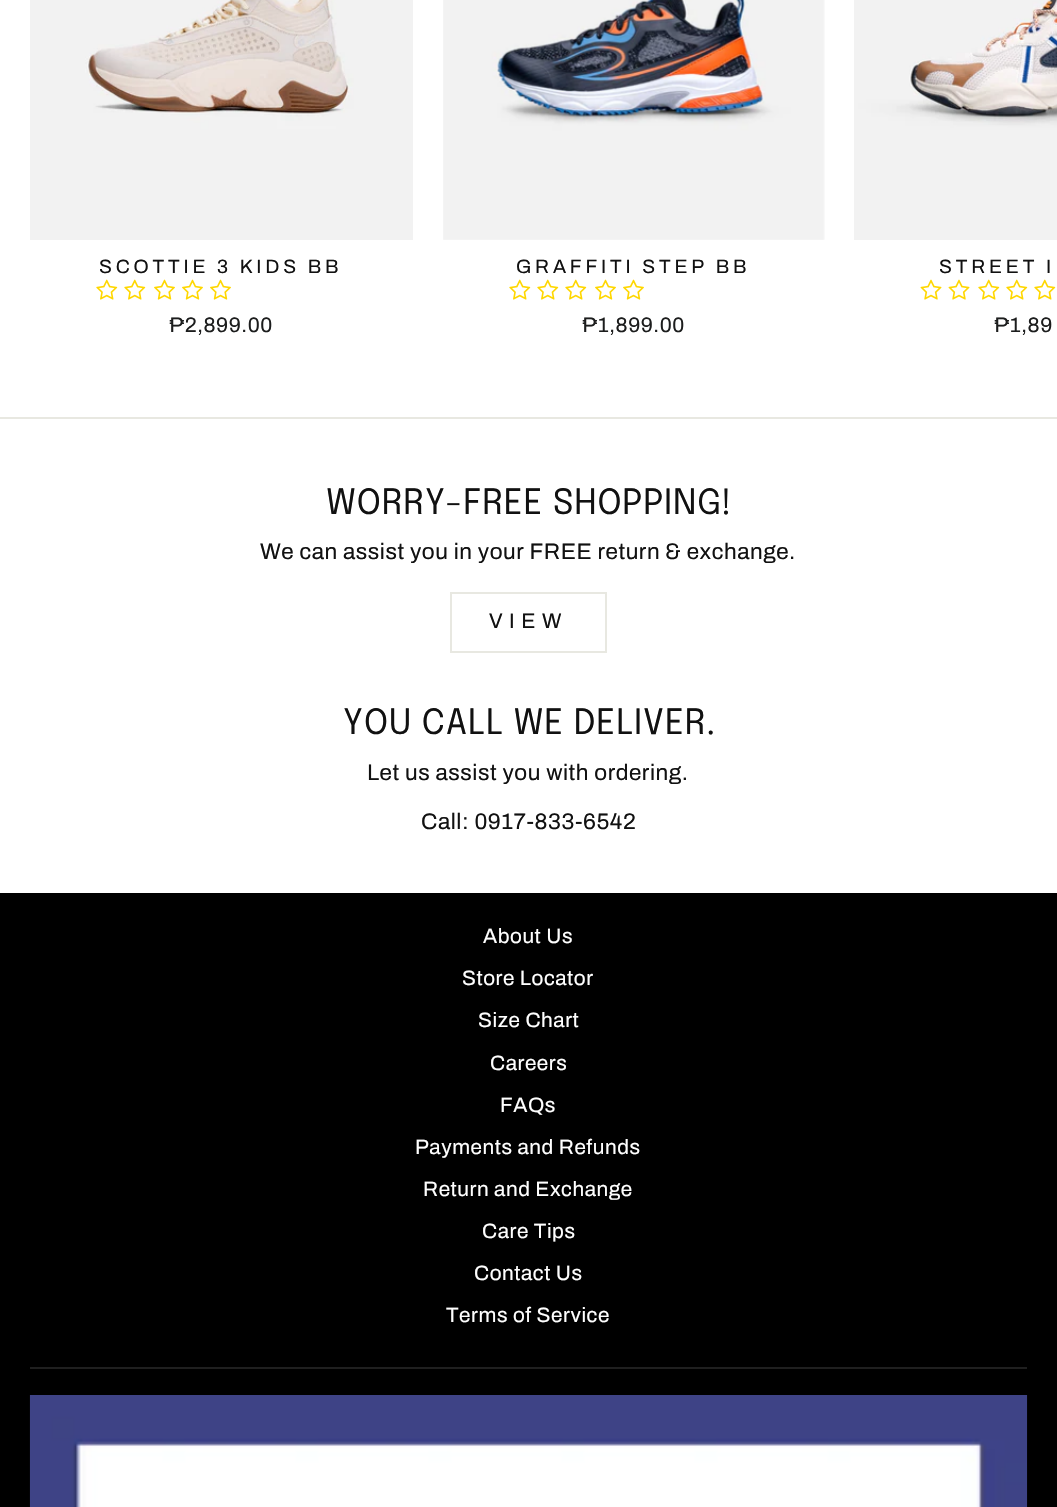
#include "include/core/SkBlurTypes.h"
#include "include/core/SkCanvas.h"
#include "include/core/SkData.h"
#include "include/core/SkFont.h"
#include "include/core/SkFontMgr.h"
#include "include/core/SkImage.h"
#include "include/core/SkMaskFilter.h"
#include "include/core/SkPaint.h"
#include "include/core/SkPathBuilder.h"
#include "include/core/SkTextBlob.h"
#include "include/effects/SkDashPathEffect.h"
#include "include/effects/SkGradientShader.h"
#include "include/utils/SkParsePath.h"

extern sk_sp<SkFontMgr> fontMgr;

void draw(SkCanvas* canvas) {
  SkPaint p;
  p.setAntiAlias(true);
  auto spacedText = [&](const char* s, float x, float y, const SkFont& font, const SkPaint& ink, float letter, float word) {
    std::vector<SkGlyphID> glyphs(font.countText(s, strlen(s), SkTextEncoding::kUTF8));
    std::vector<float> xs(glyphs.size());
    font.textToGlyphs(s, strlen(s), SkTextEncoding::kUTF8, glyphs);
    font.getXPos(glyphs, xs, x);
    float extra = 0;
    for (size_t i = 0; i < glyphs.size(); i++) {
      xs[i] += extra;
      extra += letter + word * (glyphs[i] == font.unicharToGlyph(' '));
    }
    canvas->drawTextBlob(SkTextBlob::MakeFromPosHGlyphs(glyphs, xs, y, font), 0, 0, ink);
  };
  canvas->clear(SK_ColorWHITE);
  canvas->drawImageRect(SkImages::DeferredFromEncodedData(SkData::MakeFromFileName("images/1.png")), SkRect::MakeLTRB(30, 0, 413, 240), SkSamplingOptions());
  canvas->drawImageRect(SkImages::DeferredFromEncodedData(SkData::MakeFromFileName("images/2.png")), SkRect::MakeLTRB(96, 279, 118, 300), SkSamplingOptions());
  canvas->drawImageRect(SkImages::DeferredFromEncodedData(SkData::MakeFromFileName("images/2.png")), SkRect::MakeLTRB(124, 279, 146, 300), SkSamplingOptions());
  canvas->drawImageRect(SkImages::DeferredFromEncodedData(SkData::MakeFromFileName("images/3.png")), SkRect::MakeLTRB(154, 279, 175, 300), SkSamplingOptions());
  canvas->drawImageRect(SkImages::DeferredFromEncodedData(SkData::MakeFromFileName("images/3.png")), SkRect::MakeLTRB(182, 279, 203, 300), SkSamplingOptions());
  canvas->drawImageRect(SkImages::DeferredFromEncodedData(SkData::MakeFromFileName("images/3.png")), SkRect::MakeLTRB(210, 279, 231, 300), SkSamplingOptions());
  canvas->drawImageRect(SkImages::DeferredFromEncodedData(SkData::MakeFromFileName("images/4.png")), SkRect::MakeLTRB(443, 0, 825, 240), SkSamplingOptions());
  canvas->drawImageRect(SkImages::DeferredFromEncodedData(SkData::MakeFromFileName("images/2.png")), SkRect::MakeLTRB(509, 279, 531, 300), SkSamplingOptions());
  canvas->drawImageRect(SkImages::DeferredFromEncodedData(SkData::MakeFromFileName("images/2.png")), SkRect::MakeLTRB(537, 279, 559, 300), SkSamplingOptions());
  canvas->drawImageRect(SkImages::DeferredFromEncodedData(SkData::MakeFromFileName("images/2.png")), SkRect::MakeLTRB(565, 279, 587, 300), SkSamplingOptions());
  canvas->drawImageRect(SkImages::DeferredFromEncodedData(SkData::MakeFromFileName("images/3.png")), SkRect::MakeLTRB(595, 279, 616, 300), SkSamplingOptions());
  canvas->drawImageRect(SkImages::DeferredFromEncodedData(SkData::MakeFromFileName("images/3.png")), SkRect::MakeLTRB(623, 279, 644, 300), SkSamplingOptions());
  canvas->drawImageRect(SkImages::DeferredFromEncodedData(SkData::MakeFromFileName("images/5.png")), SkRect::MakeLTRB(854, 0, 1057, 240), SkSamplingOptions());
  canvas->drawImageRect(SkImages::DeferredFromEncodedData(SkData::MakeFromFileName("images/6.png")), SkRect::MakeLTRB(920, 279, 942, 300), SkSamplingOptions());
  canvas->drawImageRect(SkImages::DeferredFromEncodedData(SkData::MakeFromFileName("images/6.png")), SkRect::MakeLTRB(948, 279, 970, 300), SkSamplingOptions());
  canvas->drawImageRect(SkImages::DeferredFromEncodedData(SkData::MakeFromFileName("images/2.png")), SkRect::MakeLTRB(978, 279, 1000, 300), SkSamplingOptions());
  canvas->drawImageRect(SkImages::DeferredFromEncodedData(SkData::MakeFromFileName("images/2.png")), SkRect::MakeLTRB(1006, 279, 1028, 300), SkSamplingOptions());
  canvas->drawImageRect(SkImages::DeferredFromEncodedData(SkData::MakeFromFileName("images/2.png")), SkRect::MakeLTRB(1034, 279, 1056, 300), SkSamplingOptions());
  p.setColor(SkColorSetRGB(232, 232, 225));
  canvas->drawRect(SkRect::MakeLTRB(0, 417, 1057, 419), p);
  p.setStyle(SkPaint::kStroke_Style);
  p.setStrokeWidth(2);
  canvas->drawRect(SkRect::MakeLTRB(451, 593, 606, 652), p);
  p.setStyle(SkPaint::kFill_Style);
  p.setColor(SK_ColorBLACK);
  canvas->drawRect(SkRect::MakeLTRB(0, 893, 1057, 1507), p);
  p.setColor(SkColorSetRGB(31, 31, 31));
  canvas->drawRect(SkRect::MakeLTRB(30, 1367, 1027, 1369), p);
  canvas->drawImageRect(SkImages::DeferredFromEncodedData(SkData::MakeFromFileName("images/7.png")), SkRect::MakeLTRB(29, 1395, 1028, 1507), SkSamplingOptions());
  SkFont font1(fontMgr->matchFamilyStyle("Archivo", SkFontStyle::Normal()), 19.25f);
  font1.setSubpixel(true);
  p.setColor(SkColorSetRGB(17, 17, 17));
  spacedText("SCOTTIE 3 KIDS BB", 99, 273, font1, p, 3.8f, 0);
  SkFont font2(fontMgr->matchFamilyStyle("Archivo", SkFontStyle::Normal()), 21);
  font2.setSubpixel(true);
  p.setColor(SkColorSetRGB(28, 29, 29));
  spacedText("₱2,899.00", 169, 332, font2, p, 0.55f, 0);
  p.setColor(SkColorSetRGB(17, 17, 17));
  spacedText("GRAFFITI STEP BB", 516, 273, font1, p, 3.8f, 0);
  p.setColor(SkColorSetRGB(28, 29, 29));
  spacedText("₱1,899.00", 582, 332, font2, p, 0.55f, 0);
  p.setColor(SkColorSetRGB(17, 17, 17));
  spacedText("STREET I", 939, 273, font1, p, 3.8f, 0);
  p.setColor(SkColorSetRGB(28, 29, 29));
  spacedText("₱1,89", 994, 332, font2, p, 0.55f, 0);
  SkFont font3(fontMgr->matchFamilyStyle("Epilogue", SkFontStyle::Normal()), 34.75f);
  font3.setSubpixel(true);
  p.setColor(SkColorSetRGB(17, 17, 17));
  spacedText("WORRY-FREE SHOPPING!", 326, 514, font3, p, 0.9f, 0);
  SkFont font4(fontMgr->matchFamilyStyle("Archivo", SkFontStyle::Normal()), 22.5f);
  font4.setSubpixel(true);
  spacedText("We can assist you in your FREE return & exchange.", 260, 559, font4, p, 0.55f, 0);
  spacedText("VIEW", 489, 628, font2, p, 6.5f, 0);
  spacedText("YOU CALL WE DELIVER.", 343, 734, font3, p, 0.9f, 0);
  spacedText("Let us assist you with ordering.", 367, 780, font4, p, 0.55f, 0);
  spacedText("Call: 0917-833-6542", 421, 829, font4, p, 0.55f, 0);
  SkFont font5(fontMgr->matchFamilyStyle("Archivo", SkFontStyle::Normal()), 20.75f);
  font5.setSubpixel(true);
  p.setColor(SK_ColorWHITE);
  spacedText("About Us", 483, 943, font5, p, 0.55f, 0);
  spacedText("Store Locator", 462, 985, font5, p, 0.55f, 0);
  spacedText("Size Chart", 478, 1027, font5, p, 0.55f, 0);
  spacedText("Careers", 490, 1070, font5, p, 0.55f, 0);
  spacedText("FAQs", 500, 1112, font5, p, 0.55f, 0);
  spacedText("Payments and Refunds", 415, 1154, font5, p, 0.55f, 0);
  spacedText("Return and Exchange", 423, 1196, font5, p, 0.55f, 0);
  spacedText("Care Tips", 482, 1238, font5, p, 0.55f, 0);
  spacedText("Contact Us", 474, 1280, font5, p, 0.55f, 0);
  spacedText("Terms of Service", 446, 1322, font5, p, 0.55f, 0);
}
